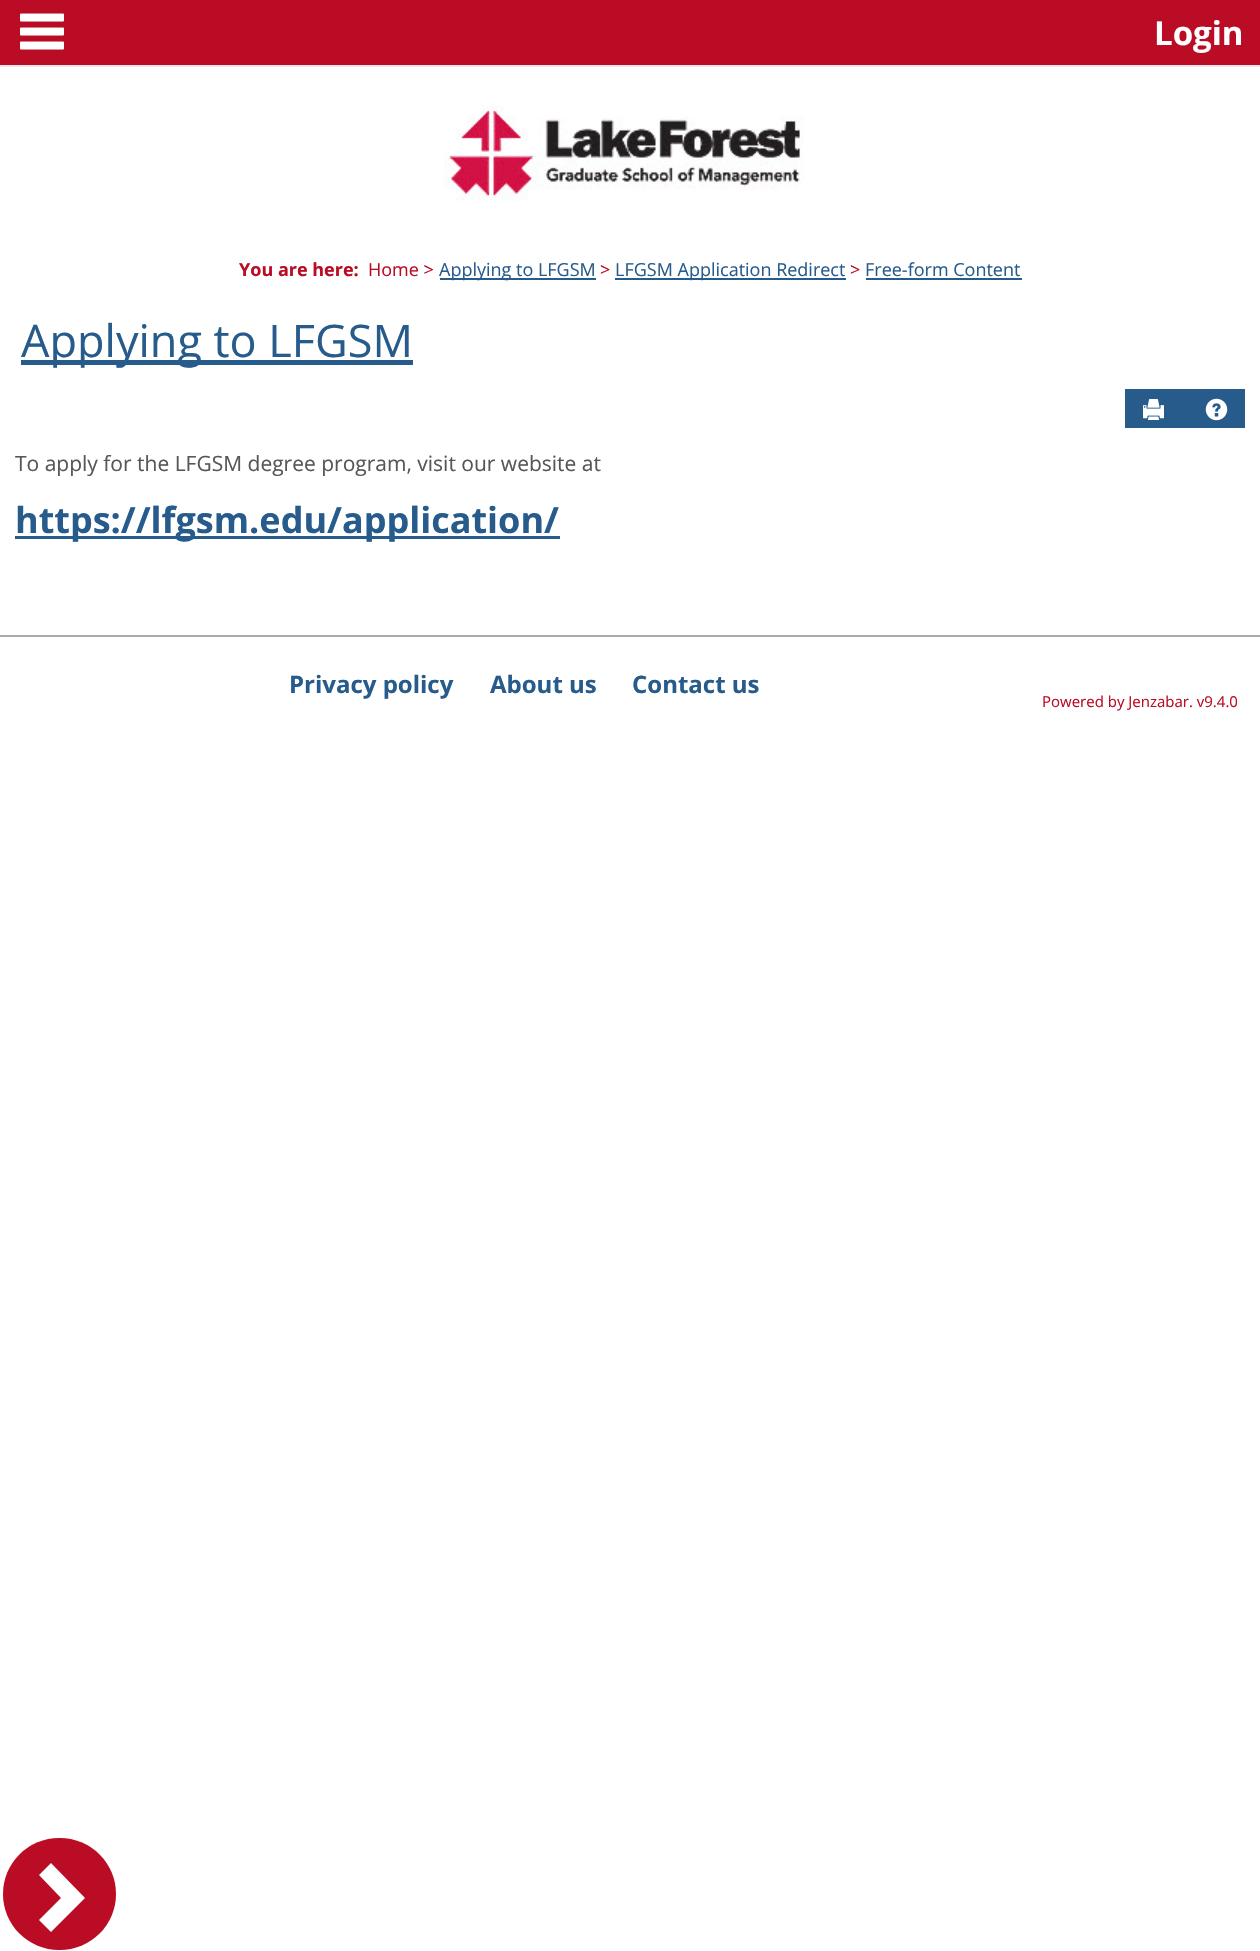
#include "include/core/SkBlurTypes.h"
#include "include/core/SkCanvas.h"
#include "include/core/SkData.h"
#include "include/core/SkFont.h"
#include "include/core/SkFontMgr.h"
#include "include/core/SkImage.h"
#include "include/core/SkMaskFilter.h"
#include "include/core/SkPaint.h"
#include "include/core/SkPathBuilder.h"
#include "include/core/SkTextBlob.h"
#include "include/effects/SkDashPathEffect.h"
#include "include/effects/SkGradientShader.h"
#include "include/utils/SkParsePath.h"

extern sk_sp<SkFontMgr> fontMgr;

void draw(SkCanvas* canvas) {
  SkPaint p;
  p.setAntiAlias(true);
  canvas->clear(SK_ColorWHITE);
  p.setColor(SkColorSetRGB(186, 12, 36));
  canvas->drawRect(SkRect::MakeLTRB(0, 0, 1260, 65), p);
  p.setColor(SkColorSetRGB(231, 231, 231));
  canvas->drawRect(SkRect::MakeLTRB(0, 65, 1260, 67), p);
  canvas->drawImageRect(SkImages::DeferredFromEncodedData(SkData::MakeFromFileName("images/1.png")), SkRect::MakeLTRB(20, 13, 64, 50), SkSamplingOptions());
  canvas->drawImageRect(SkImages::DeferredFromEncodedData(SkData::MakeFromFileName("images/2.png")), SkRect::MakeLTRB(444, 105, 804, 201), SkSamplingOptions());
  p.setColor(SkColorSetRGB(38, 91, 140));
  canvas->drawRect(SkRect::MakeLTRB(440, 278, 596, 280), p);
  canvas->drawRect(SkRect::MakeLTRB(615, 278, 846, 280), p);
  canvas->drawRect(SkRect::MakeLTRB(866, 278, 1022, 280), p);
  canvas->drawRect(SkRect::MakeLTRB(21, 360, 413, 365), p);
  canvas->drawRect(SkRect::MakeLTRB(1125, 389, 1245, 428), p);
  canvas->drawImageRect(SkImages::DeferredFromEncodedData(SkData::MakeFromFileName("images/3.png")), SkRect::MakeLTRB(1143, 399, 1164, 420), SkSamplingOptions());
  canvas->drawImageRect(SkImages::DeferredFromEncodedData(SkData::MakeFromFileName("images/4.png")), SkRect::MakeLTRB(1205, 398, 1228, 421), SkSamplingOptions());
  canvas->drawRect(SkRect::MakeLTRB(15, 536, 560, 539), p);
  p.setColor(SkColorSetRGB(186, 12, 36));
  canvas->drawRoundRect(SkRect::MakeLTRB(3, 1838, 116, 1950), 56, 56, p);
  p.setColor(SK_ColorWHITE);
  canvas->drawPath(SkPathBuilder().moveTo(51, 1932).lineTo(39, 1920).lineTo(61, 1898).lineTo(39, 1875).lineTo(51, 1863).lineTo(85, 1898).close().detach(), p);
  p.setColor(SkColorSetRGB(171, 171, 171));
  canvas->drawRect(SkRect::MakeLTRB(0, 635, 1260, 637), p);
  SkFont font1(fontMgr->matchFamilyStyle("Open Sans", SkFontStyle::Bold()), 33);
  font1.setSubpixel(true);
  p.setColor(SK_ColorWHITE);
  canvas->drawString("Login", 1154, 45, font1, p);
  SkFont font2(fontMgr->matchFamilyStyle("Open Sans", SkFontStyle::Bold()), 18);
  font2.setSubpixel(true);
  p.setColor(SkColorSetRGB(186, 12, 36));
  canvas->drawString("You are here:", 239, 276, font2, p);
  SkFont font3(fontMgr->matchFamilyStyle("Open Sans", SkFontStyle::Normal()), 18);
  font3.setSubpixel(true);
  canvas->drawString("Home >", 368, 276, font3, p);
  p.setColor(SkColorSetRGB(38, 91, 140));
  canvas->drawString("Applying to LFGSM", 439, 276, font3, p);
  p.setColor(SkColorSetRGB(186, 12, 36));
  canvas->drawString(">", 600, 276, font3, p);
  p.setColor(SkColorSetRGB(38, 91, 140));
  canvas->drawString("LFGSM Application Redirect", 615, 276, font3, p);
  p.setColor(SkColorSetRGB(186, 12, 36));
  canvas->drawString(">", 850, 276, font3, p);
  p.setColor(SkColorSetRGB(38, 91, 140));
  canvas->drawString("Free-form Content", 865, 276, font3, p);
  SkFont font4(fontMgr->matchFamilyStyle("Open Sans", SkFontStyle::Normal()), 45);
  font4.setSubpixel(true);
  canvas->drawString("Applying to LFGSM", 21, 357, font4, p);
  SkFont font5(fontMgr->matchFamilyStyle("Open Sans", SkFontStyle::Normal()), 21);
  font5.setSubpixel(true);
  p.setColor(SkColorSetRGB(87, 87, 87));
  canvas->drawString("To apply for the LFGSM degree program, visit our website at", 15, 471, font5, p);
  SkFont font6(fontMgr->matchFamilyStyle("Open Sans", SkFontStyle::Bold()), 36);
  font6.setSubpixel(true);
  p.setColor(SkColorSetRGB(38, 91, 140));
  canvas->drawString("https://lfgsm.edu/application/", 15, 533, font6, p);
  SkFont font7(fontMgr->matchFamilyStyle("Open Sans", SkFontStyle::Bold()), 24);
  font7.setSubpixel(true);
  canvas->drawString("Privacy policy", 289, 693, font7, p);
  canvas->drawString("About us", 490, 693, font7, p);
  canvas->drawString("Contact us", 632, 693, font7, p);
  SkFont font8(fontMgr->matchFamilyStyle("Open Sans", SkFontStyle::Normal()), 15);
  font8.setSubpixel(true);
  p.setColor(SkColorSetRGB(186, 12, 36));
  canvas->drawString("Powered by Jenzabar. v9.4.0", 1042, 707, font8, p);
}
